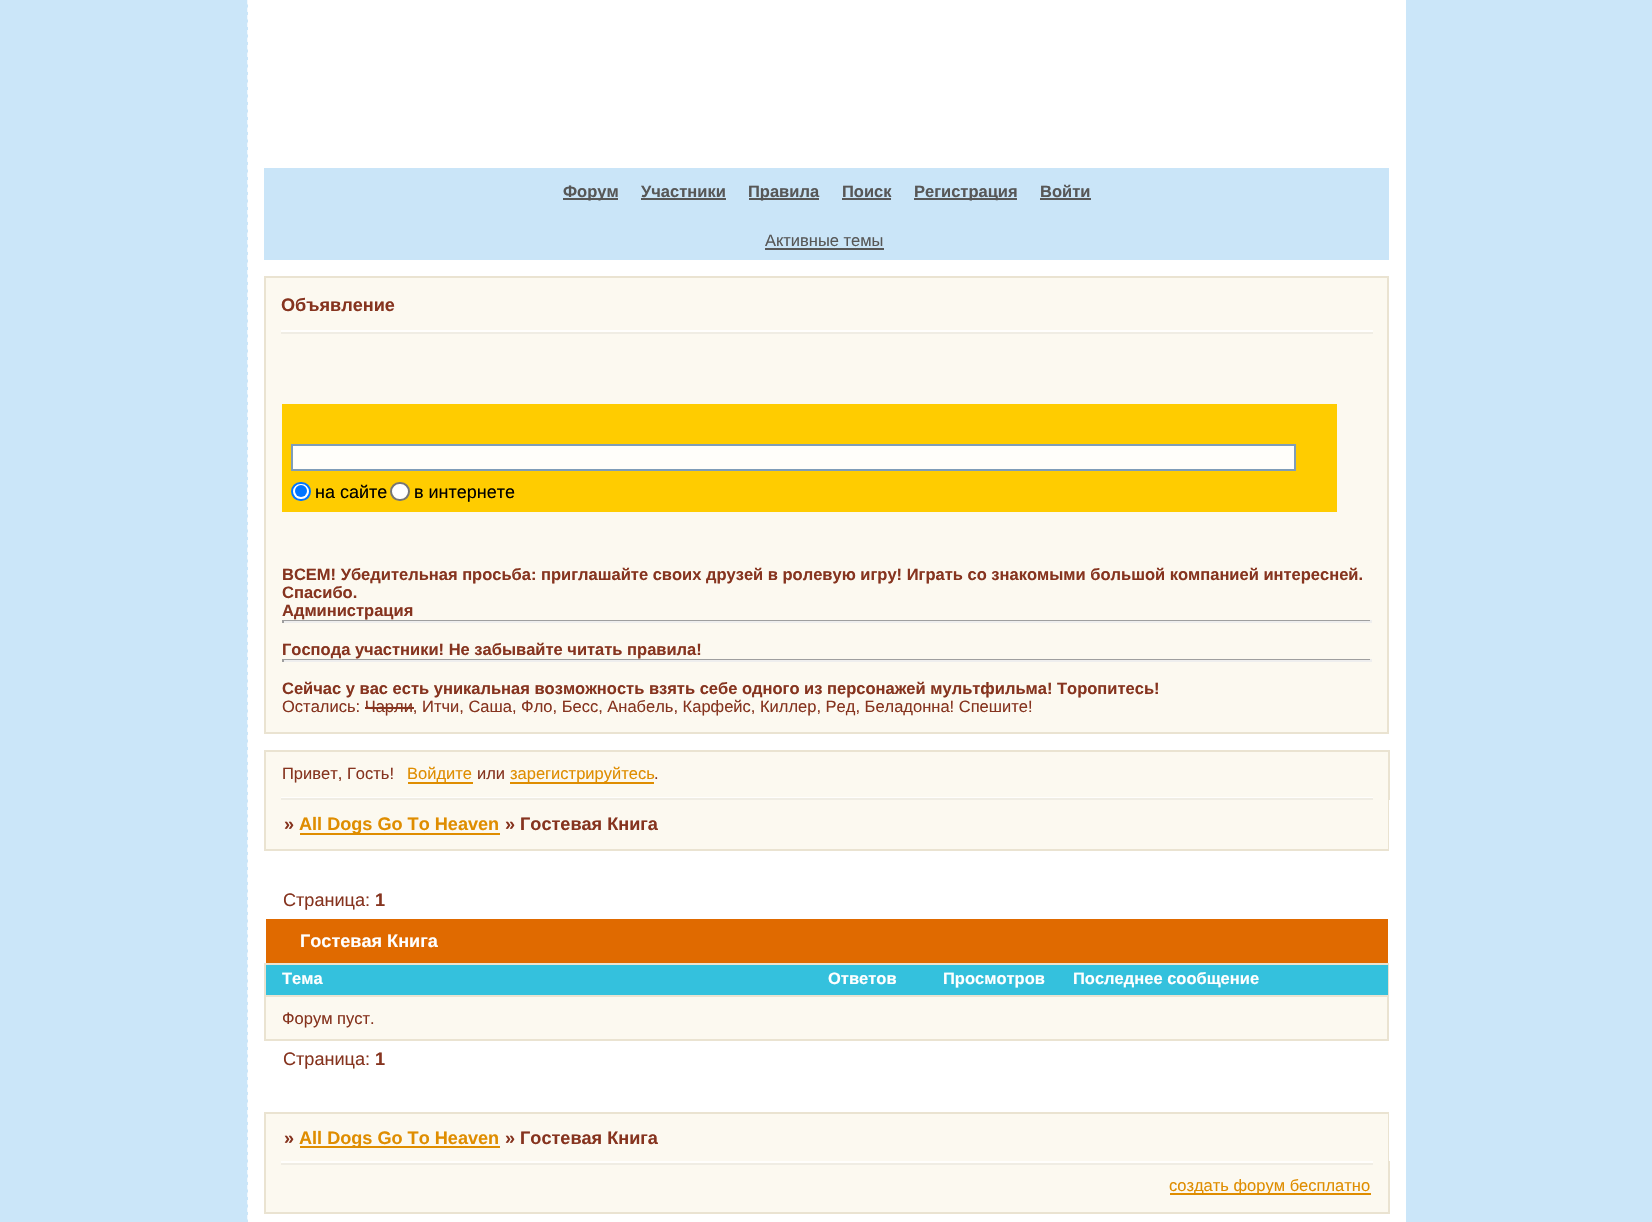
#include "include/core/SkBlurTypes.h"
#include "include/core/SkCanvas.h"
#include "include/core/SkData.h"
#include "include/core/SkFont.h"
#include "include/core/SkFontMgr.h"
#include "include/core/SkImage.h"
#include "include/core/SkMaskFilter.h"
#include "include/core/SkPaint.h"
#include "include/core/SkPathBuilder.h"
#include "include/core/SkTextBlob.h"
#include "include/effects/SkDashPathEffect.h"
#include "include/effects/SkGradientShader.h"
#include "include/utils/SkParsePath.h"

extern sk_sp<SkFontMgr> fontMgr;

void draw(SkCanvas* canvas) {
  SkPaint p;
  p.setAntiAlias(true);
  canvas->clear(SkColorSetRGB(203, 230, 249));
  p.setColor(SK_ColorWHITE);
  canvas->drawRect(SkRect::MakeLTRB(248, 0, 1406, 1222), p);
  p.setStyle(SkPaint::kStroke_Style);
  p.setStrokeWidth(1.5f);
  p.setPathEffect(SkDashPathEffect::Make({{4.5f, 3}}, 0));
  canvas->drawPath(SkPathBuilder().moveTo(248, 0).lineTo(248, 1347).detach(), p);
  p.setPathEffect(nullptr);
  p.setStyle(SkPaint::kFill_Style);
  p.setColor(SkColorSetRGB(202, 229, 248));
  canvas->drawRect(SkRect::MakeLTRB(264, 168, 1389, 260), p);
  p.setColor(SkColorSetRGB(87, 87, 87));
  canvas->drawRect(SkRect::MakeLTRB(563, 198, 618, 200), p);
  canvas->drawRect(SkRect::MakeLTRB(641, 198, 726, 200), p);
  canvas->drawRect(SkRect::MakeLTRB(749, 198, 819, 200), p);
  canvas->drawRect(SkRect::MakeLTRB(842, 198, 891, 200), p);
  canvas->drawRect(SkRect::MakeLTRB(914, 198, 1017, 200), p);
  canvas->drawRect(SkRect::MakeLTRB(1040, 198, 1091, 200), p);
  canvas->drawRect(SkRect::MakeLTRB(765, 248, 884, 250), p);
  p.setColor(SkColorSetRGB(252, 249, 240));
  canvas->drawRect(SkRect::MakeLTRB(265, 277, 1388, 733), p);
  p.setStyle(SkPaint::kStroke_Style);
  p.setStrokeWidth(2);
  p.setColor(SkColorSetRGB(234, 227, 209));
  canvas->drawRect(SkRect::MakeLTRB(265, 277, 1388, 733), p);
  p.setStyle(SkPaint::kFill_Style);
  p.setColor(SkColorSetRGB(240, 237, 228));
  canvas->drawRect(SkRect::MakeLTRB(281, 332, 1373, 334), p);
  p.setColor(SkColorSetRGB(255, 254, 252));
  canvas->drawRect(SkRect::MakeLTRB(281, 330, 1373, 332), p);
  p.setColor(SkColorSetRGB(255, 204, 0));
  canvas->drawRect(SkRect::MakeLTRB(282, 404, 1337, 512), p);
  p.setColor(SkColorSetRGB(255, 254, 250));
  canvas->drawRect(SkRect::MakeLTRB(292, 445, 1295, 470), p);
  p.setStyle(SkPaint::kStroke_Style);
  p.setColor(SkColorSetRGB(127, 157, 185));
  canvas->drawRect(SkRect::MakeLTRB(292, 445, 1295, 470), p);
  p.setStyle(SkPaint::kFill_Style);
  p.setColor(SK_ColorWHITE);
  canvas->drawRoundRect(SkRect::MakeLTRB(292, 483, 310, 500), 8.5f, 8.5f, p);
  p.setStyle(SkPaint::kStroke_Style);
  p.setColor(SkColorSetRGB(0, 117, 255));
  canvas->drawRoundRect(SkRect::MakeLTRB(292, 483, 310, 500), 8.5f, 8.5f, p);
  p.setStyle(SkPaint::kFill_Style);
  canvas->drawCircle(301, 491, 6, p);
  p.setColor(SK_ColorWHITE);
  canvas->drawRoundRect(SkRect::MakeLTRB(391, 483, 409, 500), 8.5f, 8.5f, p);
  p.setStyle(SkPaint::kStroke_Style);
  p.setColor(SkColorSetRGB(118, 118, 118));
  canvas->drawRoundRect(SkRect::MakeLTRB(391, 483, 409, 500), 8.5f, 8.5f, p);
  p.setStyle(SkPaint::kFill_Style);
  p.setColor(SkColorSetRGB(159, 159, 159));
  canvas->drawRect(SkRect::MakeLTRB(282, 620, 1371, 621), p);
  p.setColor(SkColorSetRGB(238, 238, 238));
  canvas->drawRect(SkRect::MakeLTRB(1370, 620, 1372, 623), p);
  canvas->drawRect(SkRect::MakeLTRB(282, 621, 1371, 623), p);
  p.setColor(SkColorSetRGB(159, 159, 159));
  canvas->drawRect(SkRect::MakeLTRB(282, 620, 284, 623), p);
  canvas->drawRect(SkRect::MakeLTRB(282, 659, 1371, 660), p);
  p.setColor(SkColorSetRGB(238, 238, 238));
  canvas->drawRect(SkRect::MakeLTRB(1370, 659, 1372, 662), p);
  canvas->drawRect(SkRect::MakeLTRB(282, 660, 1371, 662), p);
  p.setColor(SkColorSetRGB(159, 159, 159));
  canvas->drawRect(SkRect::MakeLTRB(282, 659, 284, 662), p);
  p.setColor(SkColorSetRGB(134, 52, 31));
  canvas->drawRect(SkRect::MakeLTRB(365, 707, 414, 709), p);
  p.setColor(SkColorSetRGB(252, 249, 240));
  canvas->drawRect(SkRect::MakeLTRB(266, 752, 1388, 849), p);
  p.setColor(SkColorSetRGB(234, 227, 209));
  canvas->drawRect(SkRect::MakeLTRB(264, 750, 1389, 752), p);
  canvas->drawRect(SkRect::MakeLTRB(1388, 750, 1390, 800), p);
  canvas->drawRect(SkRect::MakeLTRB(264, 750, 266, 800), p);
  p.setColor(SkColorSetRGB(223, 141, 0));
  canvas->drawRect(SkRect::MakeLTRB(408, 782, 473, 784), p);
  canvas->drawRect(SkRect::MakeLTRB(510, 782, 654, 784), p);
  p.setColor(SkColorSetRGB(255, 254, 252));
  canvas->drawRect(SkRect::MakeLTRB(281, 797, 1373, 798), p);
  p.setColor(SkColorSetRGB(240, 237, 228));
  canvas->drawRect(SkRect::MakeLTRB(281, 798, 1373, 800), p);
  p.setColor(SkColorSetRGB(234, 227, 209));
  canvas->drawRect(SkRect::MakeLTRB(1388, 797, 1389, 851), p);
  canvas->drawRect(SkRect::MakeLTRB(264, 849, 1389, 851), p);
  canvas->drawRect(SkRect::MakeLTRB(264, 797, 266, 851), p);
  p.setColor(SkColorSetRGB(223, 141, 0));
  canvas->drawRect(SkRect::MakeLTRB(300, 833, 500, 835), p);
  p.setColor(SkColorSetRGB(224, 106, 0));
  canvas->drawRect(SkRect::MakeLTRB(266, 919, 1388, 963), p);
  p.setColor(SkColorSetRGB(252, 249, 240));
  canvas->drawRect(SkRect::MakeLTRB(266, 997, 1387, 1039), p);
  p.setStyle(SkPaint::kStroke_Style);
  p.setColor(SkColorSetRGB(234, 227, 209));
  canvas->drawRect(SkRect::MakeLTRB(265, 964, 1388, 1040), p);
  p.setStyle(SkPaint::kFill_Style);
  p.setColor(SkColorSetRGB(52, 193, 221));
  canvas->drawRect(SkRect::MakeLTRB(266, 965, 1388, 995), p);
  p.setColor(SkColorSetRGB(234, 227, 209));
  canvas->drawRect(SkRect::MakeLTRB(266, 995, 1388, 997), p);
  canvas->drawRect(SkRect::MakeLTRB(264, 1112, 1389, 1114), p);
  canvas->drawRect(SkRect::MakeLTRB(1388, 1161, 1390, 1214), p);
  canvas->drawRect(SkRect::MakeLTRB(1388, 1112, 1389, 1164), p);
  canvas->drawRect(SkRect::MakeLTRB(264, 1212, 1389, 1214), p);
  canvas->drawRect(SkRect::MakeLTRB(264, 1161, 266, 1214), p);
  canvas->drawRect(SkRect::MakeLTRB(264, 1112, 266, 1164), p);
  p.setColor(SkColorSetRGB(252, 249, 240));
  canvas->drawRect(SkRect::MakeLTRB(266, 1114, 1388, 1212), p);
  p.setColor(SkColorSetRGB(223, 141, 0));
  canvas->drawRect(SkRect::MakeLTRB(300, 1146, 500, 1148), p);
  p.setColor(SkColorSetRGB(255, 254, 252));
  canvas->drawRect(SkRect::MakeLTRB(281, 1161, 1373, 1163), p);
  p.setColor(SkColorSetRGB(240, 237, 228));
  canvas->drawRect(SkRect::MakeLTRB(281, 1163, 1373, 1165), p);
  p.setColor(SkColorSetRGB(223, 141, 0));
  canvas->drawRect(SkRect::MakeLTRB(1170, 1193, 1371, 1195), p);
  SkFont font1(fontMgr->matchFamilyStyle("Liberation Sans", SkFontStyle::Bold()), 16.5f);
  font1.setSubpixel(true);
  p.setColor(SkColorSetRGB(87, 87, 87));
  canvas->drawString("Форум", 563, 197, font1, p);
  canvas->drawString("Участники", 641, 197, font1, p);
  canvas->drawString("Правила", 748, 197, font1, p);
  canvas->drawString("Поиск", 842, 197, font1, p);
  canvas->drawString("Регистрация", 914, 197, font1, p);
  canvas->drawString("Войти", 1040, 197, font1, p);
  SkFont font2(fontMgr->matchFamilyStyle("Liberation Sans", SkFontStyle::Normal()), 16.5f);
  font2.setSubpixel(true);
  canvas->drawString("Активные темы", 765, 246, font2, p);
  SkFont font3(fontMgr->matchFamilyStyle("Liberation Sans", SkFontStyle::Bold()), 18.1f);
  font3.setSubpixel(true);
  p.setColor(SkColorSetRGB(134, 52, 31));
  canvas->drawString("Объявление", 281, 311, font3, p);
  SkFont font4(fontMgr->matchFamilyStyle("Liberation Sans", SkFontStyle::Normal()), 18);
  font4.setSubpixel(true);
  p.setColor(SK_ColorBLACK);
  canvas->drawString("на сайте", 315, 498, font4, p);
  canvas->drawString("в интернете", 414, 498, font4, p);
  p.setColor(SkColorSetRGB(134, 52, 31));
  canvas->drawString("ВСЕМ! Убедительная просьба: приглашайте своих друзей в ролевую игру! Играть со знакомыми большой компанией интересней.", 282, 580, font1, p);
  canvas->drawString("Спасибо.", 282, 598, font1, p);
  canvas->drawString("Администрация", 282, 616, font1, p);
  canvas->drawString("Господа участники! Не забывайте читать правила!", 282, 655, font1, p);
  canvas->drawString("Сейчас у вас есть уникальная возможность взять себе одного из персонажей мультфильма! Торопитесь!", 282, 694, font1, p);
  canvas->drawString("Остались: Чарли, Итчи, Саша, Фло, Бесс, Анабель, Карфейс, Киллер, Ред, Беладонна! Спешите!", 282, 712, font2, p);
  canvas->drawString("Привет, Гость!", 282, 779, font2, p);
  p.setColor(SkColorSetRGB(223, 141, 0));
  canvas->drawString("Войдите", 407, 779, font2, p);
  p.setColor(SkColorSetRGB(134, 52, 31));
  canvas->drawString("или", 477, 779, font2, p);
  p.setColor(SkColorSetRGB(223, 141, 0));
  canvas->drawString("зарегистрируйтесь", 510, 779, font2, p);
  p.setColor(SkColorSetRGB(134, 52, 31));
  canvas->drawString(".", 654, 779, font2, p);
  canvas->drawString("»", 284, 830, font3, p);
  p.setColor(SkColorSetRGB(223, 141, 0));
  canvas->drawString("All Dogs Go To Heaven", 299, 830, font3, p);
  p.setColor(SkColorSetRGB(134, 52, 31));
  canvas->drawString("» Гостевая Книга", 505, 830, font3, p);
  SkFont font5(fontMgr->matchFamilyStyle("Liberation Sans", SkFontStyle::Normal()), 18.1f);
  font5.setSubpixel(true);
  canvas->drawString("Страница:", 283, 906, font5, p);
  canvas->drawString("1", 375, 906, font3, p);
  p.setColor(SK_ColorWHITE);
  canvas->drawString("Гостевая Книга", 300, 947, font3, p);
  canvas->drawString("Тема", 282, 984, font1, p);
  canvas->drawString("Ответов", 828, 984, font1, p);
  canvas->drawString("Просмотров", 943, 984, font1, p);
  canvas->drawString("Последнее сообщение", 1073, 984, font1, p);
  p.setColor(SkColorSetRGB(134, 52, 31));
  canvas->drawString("Форум пуст.", 282, 1024, font2, p);
  canvas->drawString("Страница:", 283, 1065, font5, p);
  canvas->drawString("1", 375, 1065, font3, p);
  canvas->drawString("»", 284, 1144, font3, p);
  p.setColor(SkColorSetRGB(223, 141, 0));
  canvas->drawString("All Dogs Go To Heaven", 299, 1144, font3, p);
  p.setColor(SkColorSetRGB(134, 52, 31));
  canvas->drawString("» Гостевая Книга", 505, 1144, font3, p);
  p.setColor(SkColorSetRGB(223, 141, 0));
  canvas->drawString("создать форум бесплатно", 1169, 1191, font2, p);
}
